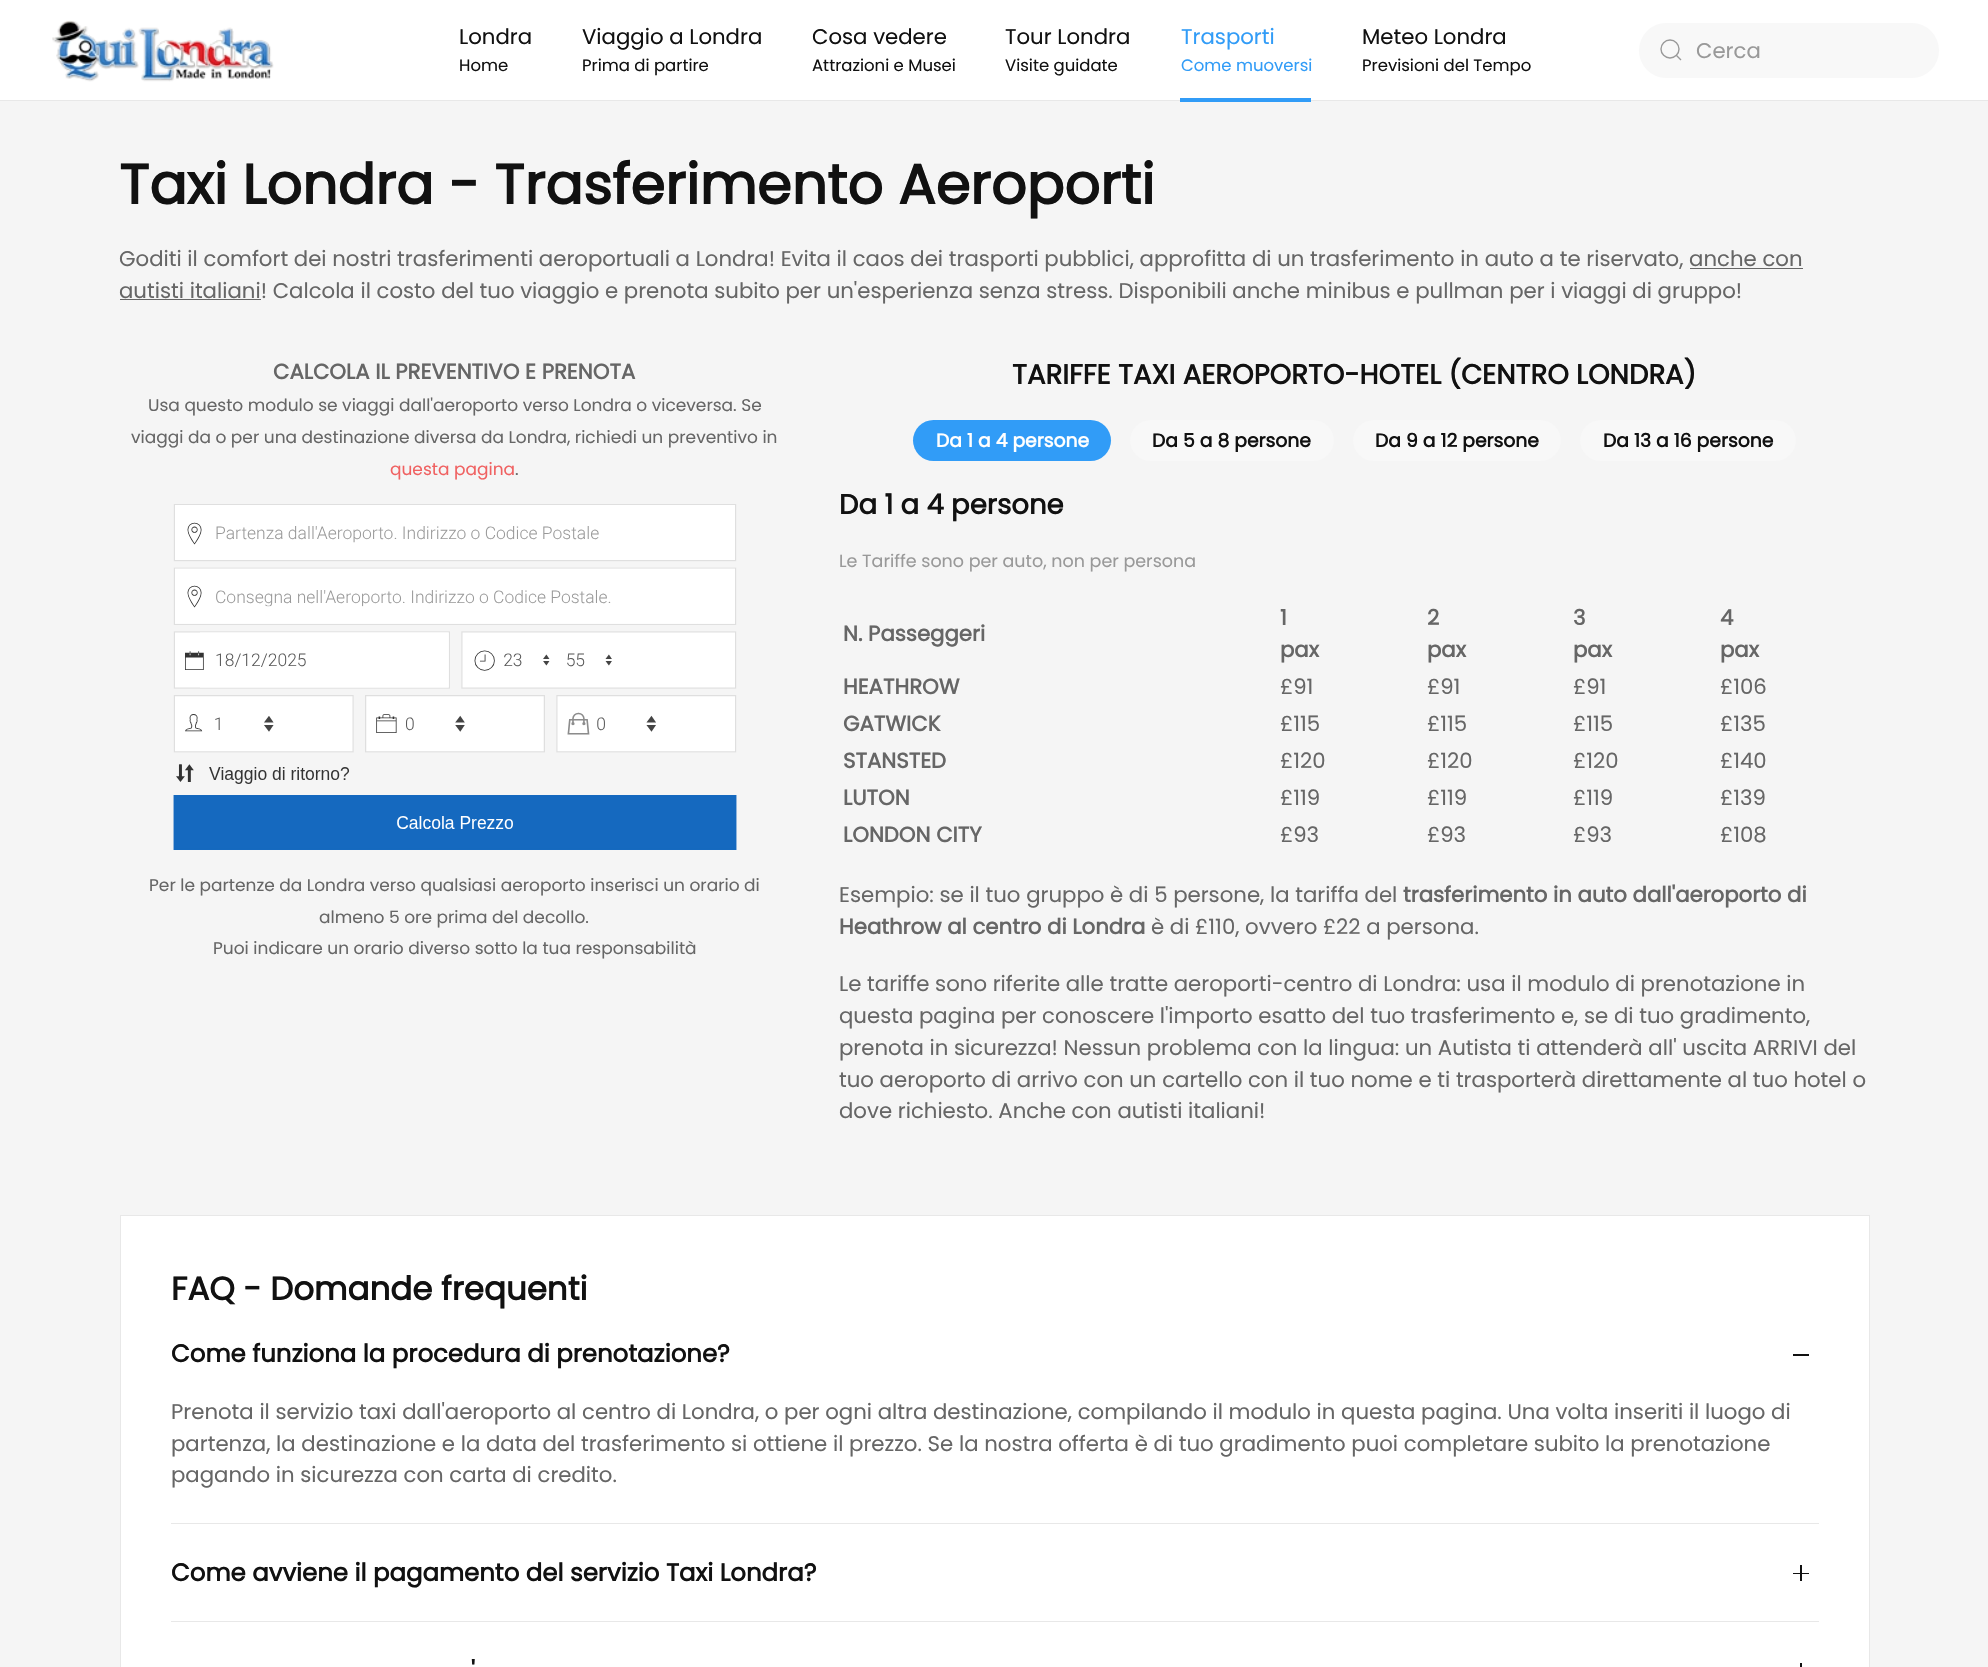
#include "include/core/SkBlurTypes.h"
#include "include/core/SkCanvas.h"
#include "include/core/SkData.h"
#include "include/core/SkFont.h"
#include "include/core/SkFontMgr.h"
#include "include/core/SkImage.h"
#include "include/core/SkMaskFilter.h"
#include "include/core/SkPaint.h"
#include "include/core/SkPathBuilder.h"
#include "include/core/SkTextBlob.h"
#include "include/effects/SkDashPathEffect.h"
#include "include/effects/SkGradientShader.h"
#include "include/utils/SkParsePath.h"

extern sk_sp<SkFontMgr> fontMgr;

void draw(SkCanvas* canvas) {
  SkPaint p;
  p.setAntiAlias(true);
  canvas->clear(SK_ColorWHITE);
  p.setColor(SkColorSetRGB(232, 232, 232));
  canvas->drawRect(SkRect::MakeLTRB(0, 100, 1988, 101), p);
  canvas->drawImageRect(SkImages::DeferredFromEncodedData(SkData::MakeFromFileName("images/1.png")), SkRect::MakeLTRB(52, 20, 274, 82), SkSamplingOptions());
  p.setColor(SkColorSetRGB(245, 245, 245));
  canvas->drawRect(SkRect::MakeLTRB(0, 101, 1988, 1667), p);
  p.setColor(SkColorSetRGB(49, 156, 247));
  canvas->drawRect(SkRect::MakeLTRB(1180, 98, 1311, 102), p);
  p.setColor(SkColorSetRGB(248, 248, 248));
  canvas->drawRoundRect(SkRect::MakeLTRB(1639, 23, 1939, 78), 27.5f, 27.5f, p);
  p.setStyle(SkPaint::kStroke_Style);
  p.setStrokeWidth(1.4f);
  p.setColor(SkColorSetRGB(153, 153, 153));
  canvas->drawCircle(1670, 49, 9, p);
  canvas->drawPath(SkPathBuilder().moveTo(1676, 55).lineTo(1681, 60).close().detach(), p);
  p.setStyle(SkPaint::kFill_Style);
  p.setColor(SkColorSetRGB(102, 102, 102));
  canvas->drawRect(SkRect::MakeLTRB(1690, 268, 1803, 269), p);
  canvas->drawRect(SkRect::MakeLTRB(120, 299, 261, 300), p);
  canvas->drawImageRect(SkImages::DeferredFromEncodedData(SkData::MakeFromFileName("images/2.png")), SkRect::MakeLTRB(173, 504, 737, 850), SkSamplingOptions());
  p.setColor(SkColorSetRGB(49, 156, 247));
  canvas->drawRoundRect(SkRect::MakeLTRB(913, 420, 1111, 461), 20.5f, 20.5f, p);
  p.setColor(SkColorSetRGB(248, 248, 248));
  canvas->drawRoundRect(SkRect::MakeLTRB(1130, 420, 1334, 461), 20.5f, 20.5f, p);
  canvas->drawRoundRect(SkRect::MakeLTRB(1353, 420, 1561, 461), 20.5f, 20.5f, p);
  canvas->drawRoundRect(SkRect::MakeLTRB(1580, 420, 1796, 461), 20.5f, 20.5f, p);
  p.setColor(SK_ColorWHITE);
  canvas->drawRect(SkRect::MakeLTRB(120.5f, 1215.5f, 1869.5f, 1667.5f), p);
  p.setStyle(SkPaint::kStroke_Style);
  p.setStrokeWidth(1);
  p.setColor(SkColorSetRGB(232, 232, 232));
  canvas->drawRect(SkRect::MakeLTRB(120.5f, 1215.5f, 1869.5f, 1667.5f), p);
  p.setStyle(SkPaint::kFill_Style);
  p.setColor(SkColorSetRGB(17, 17, 17));
  canvas->drawRect(SkRect::MakeLTRB(1793, 1354, 1809, 1356), p);
  p.setColor(SkColorSetRGB(232, 232, 232));
  canvas->drawRect(SkRect::MakeLTRB(171, 1523, 1819, 1524), p);
  p.setColor(SkColorSetRGB(17, 17, 17));
  canvas->drawRect(SkRect::MakeLTRB(1793, 1573, 1809, 1574), p);
  canvas->drawRect(SkRect::MakeLTRB(1800, 1565, 1802, 1581), p);
  p.setColor(SkColorSetRGB(232, 232, 232));
  canvas->drawRect(SkRect::MakeLTRB(171, 1621, 1819, 1622), p);
  p.setColor(SkColorSetRGB(17, 17, 17));
  canvas->drawRect(SkRect::MakeLTRB(1800, 1663, 1802, 1667), p);
  SkFont font1(fontMgr->matchFamilyStyle("Poppins", SkFontStyle::Normal()), 21.25f);
  font1.setSubpixel(true);
  canvas->drawString("Londra", 459, 44, font1, p);
  SkFont font2(fontMgr->matchFamilyStyle("Poppins", SkFontStyle::Normal()), 16.5f);
  font2.setSubpixel(true);
  canvas->drawString("Home", 459, 71, font2, p);
  canvas->drawString("Viaggio a Londra", 582, 44, font1, p);
  canvas->drawString("Prima di partire", 582, 71, font2, p);
  canvas->drawString("Cosa vedere", 812, 44, font1, p);
  canvas->drawString("Attrazioni e Musei", 812, 71, font2, p);
  canvas->drawString("Tour Londra", 1005, 44, font1, p);
  canvas->drawString("Visite guidate", 1005, 71, font2, p);
  p.setColor(SkColorSetRGB(49, 156, 247));
  canvas->drawString("Trasporti", 1181, 44, font1, p);
  canvas->drawString("Come muoversi", 1181, 71, font2, p);
  p.setColor(SkColorSetRGB(17, 17, 17));
  canvas->drawString("Meteo Londra", 1362, 44, font1, p);
  canvas->drawString("Previsioni del Tempo", 1362, 71, font2, p);
  p.setColor(SkColorSetRGB(153, 153, 153));
  canvas->drawString("Cerca", 1696, 58, font1, p);
  SkFont font3(fontMgr->matchFamilyStyle("Poppins", SkFontStyle::Bold()), 55.75f);
  font3.setSubpixel(true);
  p.setColor(SkColorSetRGB(17, 17, 17));
  canvas->drawString("Taxi Londra - Trasferimento Aeroporti", 119, 204, font3, p);
  p.setColor(SkColorSetRGB(102, 102, 102));
  canvas->drawString("Goditi il comfort dei nostri trasferimenti aeroportuali a Londra! Evita il caos dei trasporti pubblici, approfitta di un trasferimento in auto a te riservato, anche con", 119, 266, font1, p);
  canvas->drawString("autisti italiani! Calcola il costo del tuo viaggio e prenota subito per un'esperienza senza stress. Disponibili anche minibus e pullman per i viaggi di gruppo!", 119, 298, font1, p);
  SkFont font4(fontMgr->matchFamilyStyle("Poppins", SkFontStyle::Bold()), 21.25f);
  font4.setSubpixel(true);
  canvas->drawString("CALCOLA IL PREVENTIVO E PRENOTA", 273, 379, font4, p);
  SkFont font5(fontMgr->matchFamilyStyle("Poppins", SkFontStyle::Normal()), 17);
  font5.setSubpixel(true);
  canvas->drawString("Usa questo modulo se viaggi dall'aeroporto verso Londra o viceversa. Se", 148, 411, font5, p);
  canvas->drawString("viaggi da o per una destinazione diversa da Londra, richiedi un preventivo in", 131, 443, font5, p);
  p.setColor(SkColorSetRGB(240, 97, 97));
  canvas->drawString("questa pagina", 390, 475, font5, p);
  p.setColor(SkColorSetRGB(102, 102, 102));
  canvas->drawString(".", 515, 475, font5, p);
  canvas->drawString("Per le partenze da Londra verso qualsiasi aeroporto inserisci un orario di", 149, 891, font5, p);
  canvas->drawString("almeno 5 ore prima del decollo.", 319, 923, font5, p);
  canvas->drawString("Puoi indicare un orario diverso sotto la tua responsabilità", 213, 954, font5, p);
  SkFont font6(fontMgr->matchFamilyStyle("Poppins", SkFontStyle::Bold()), 27.5f);
  font6.setSubpixel(true);
  p.setColor(SkColorSetRGB(17, 17, 17));
  canvas->drawString("TARIFFE TAXI AEROPORTO-HOTEL (CENTRO LONDRA)", 1012, 384, font6, p);
  SkFont font7(fontMgr->matchFamilyStyle("Poppins", SkFontStyle::Bold()), 18.75f);
  font7.setSubpixel(true);
  p.setColor(SK_ColorWHITE);
  canvas->drawString("Da 1 a 4 persone", 936, 447, font7, p);
  p.setColor(SkColorSetRGB(17, 17, 17));
  canvas->drawString("Da 5 a 8 persone", 1152, 447, font7, p);
  canvas->drawString("Da 9 a 12 persone", 1375, 447, font7, p);
  canvas->drawString("Da 13 a 16 persone", 1603, 447, font7, p);
  canvas->drawString("Da 1 a 4 persone", 839, 514, font6, p);
  SkFont font8(fontMgr->matchFamilyStyle("Poppins", SkFontStyle::Normal()), 17.5f);
  font8.setSubpixel(true);
  p.setColor(SkColorSetRGB(153, 153, 153));
  canvas->drawString("Le Tariffe sono per auto, non per persona", 839, 567, font8, p);
  p.setColor(SkColorSetRGB(102, 102, 102));
  canvas->drawString("N. Passeggeri", 843, 641, font4, p);
  canvas->drawString("1", 1280, 625, font4, p);
  canvas->drawString("pax", 1280, 657, font4, p);
  canvas->drawString("2", 1427, 625, font4, p);
  canvas->drawString("pax", 1427, 657, font4, p);
  canvas->drawString("3", 1573, 625, font4, p);
  canvas->drawString("pax", 1573, 657, font4, p);
  canvas->drawString("4", 1720, 625, font4, p);
  canvas->drawString("pax", 1720, 657, font4, p);
  canvas->drawString("HEATHROW", 843, 694, font4, p);
  canvas->drawString("£91", 1280, 694, font1, p);
  canvas->drawString("£91", 1427, 694, font1, p);
  canvas->drawString("£91", 1573, 694, font1, p);
  canvas->drawString("£106", 1720, 694, font1, p);
  canvas->drawString("GATWICK", 843, 731, font4, p);
  canvas->drawString("£115", 1280, 731, font1, p);
  canvas->drawString("£115", 1427, 731, font1, p);
  canvas->drawString("£115", 1573, 731, font1, p);
  canvas->drawString("£135", 1720, 731, font1, p);
  canvas->drawString("STANSTED", 843, 768, font4, p);
  canvas->drawString("£120", 1280, 768, font1, p);
  canvas->drawString("£120", 1427, 768, font1, p);
  canvas->drawString("£120", 1573, 768, font1, p);
  canvas->drawString("£140", 1720, 768, font1, p);
  canvas->drawString("LUTON", 843, 805, font4, p);
  canvas->drawString("£119", 1280, 805, font1, p);
  canvas->drawString("£119", 1427, 805, font1, p);
  canvas->drawString("£119", 1573, 805, font1, p);
  canvas->drawString("£139", 1720, 805, font1, p);
  canvas->drawString("LONDON CITY", 843, 842, font4, p);
  canvas->drawString("£93", 1280, 842, font1, p);
  canvas->drawString("£93", 1427, 842, font1, p);
  canvas->drawString("£93", 1573, 842, font1, p);
  canvas->drawString("£108", 1720, 842, font1, p);
  canvas->drawString("Esempio: se il tuo gruppo è di 5 persone, la tariffa del", 839, 902, font1, p);
  canvas->drawString("trasferimento in auto dall'aeroporto di", 1403, 902, font4, p);
  canvas->drawString("Heathrow al centro di Londra", 839, 934, font4, p);
  canvas->drawString("è di £110, ovvero £22 a persona.", 1151, 934, font1, p);
  canvas->drawString("Le tariffe sono riferite alle tratte aeroporti-centro di Londra: usa il modulo di prenotazione in", 839, 991, font1, p);
  canvas->drawString("questa pagina per conoscere l'importo esatto del tuo trasferimento e, se di tuo gradimento,", 839, 1023, font1, p);
  canvas->drawString("prenota in sicurezza! Nessun problema con la lingua: un Autista ti attenderà all' uscita ARRIVI del", 839, 1055, font1, p);
  canvas->drawString("tuo aeroporto di arrivo con un cartello con il tuo nome e ti trasporterà direttamente al tuo hotel o", 839, 1087, font1, p);
  canvas->drawString("dove richiesto. Anche con autisti italiani!", 839, 1118, font1, p);
  SkFont font9(fontMgr->matchFamilyStyle("Poppins", SkFontStyle::Bold()), 32.5f);
  font9.setSubpixel(true);
  p.setColor(SkColorSetRGB(17, 17, 17));
  canvas->drawString("FAQ - Domande frequenti", 171, 1300, font9, p);
  SkFont font10(fontMgr->matchFamilyStyle("Poppins", SkFontStyle::Bold()), 24.4f);
  font10.setSubpixel(true);
  canvas->drawString("Come funziona la procedura di prenotazione?", 171, 1362, font10, p);
  p.setColor(SkColorSetRGB(102, 102, 102));
  canvas->drawString("Prenota il servizio taxi dall'aeroporto al centro di Londra, o per ogni altra destinazione, compilando il modulo in questa pagina. Una volta inseriti il luogo di", 171, 1419, font1, p);
  canvas->drawString("partenza, la destinazione e la data del trasferimento si ottiene il prezzo. Se la nostra offerta è di tuo gradimento puoi completare subito la prenotazione", 171, 1451, font1, p);
  canvas->drawString("pagando in sicurezza con carta di credito.", 171, 1482, font1, p);
  p.setColor(SkColorSetRGB(17, 17, 17));
  canvas->drawString("Come avviene il pagamento del", 171, 1581, font10, p);
  canvas->drawString("servizio Taxi Londra?", 570, 1581, font10, p);
  canvas->drawString("'", 471, 1679, font10, p);
}
